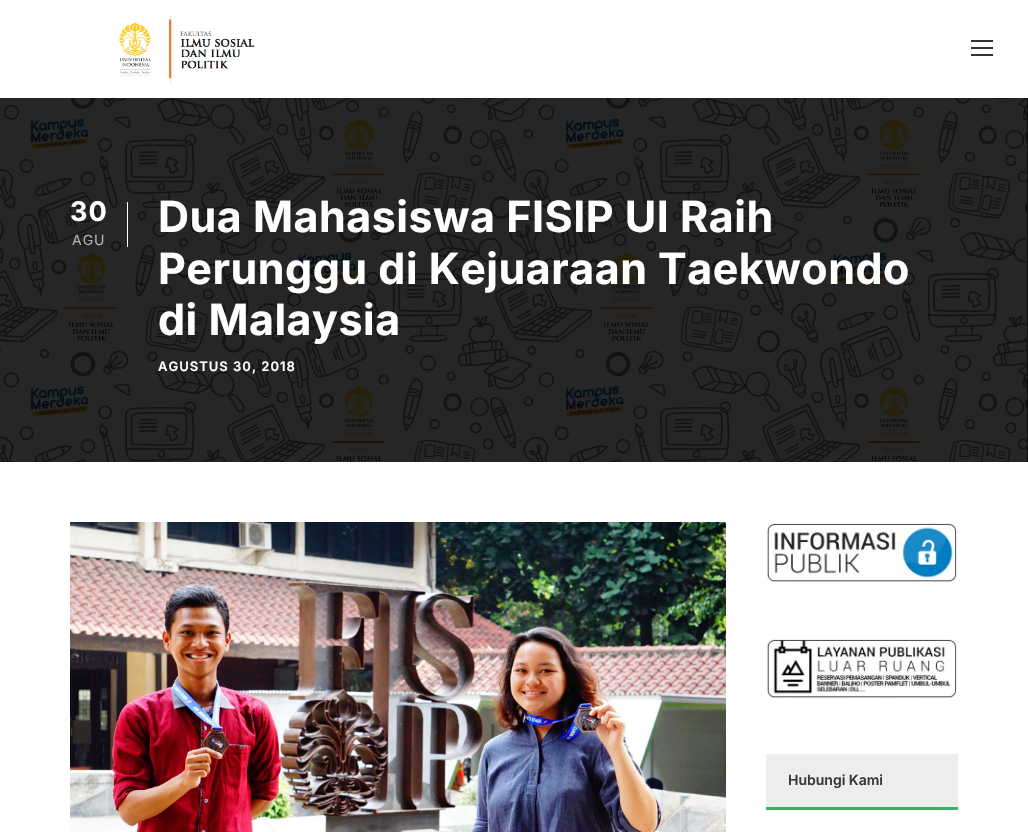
#include "include/core/SkBlurTypes.h"
#include "include/core/SkCanvas.h"
#include "include/core/SkData.h"
#include "include/core/SkFont.h"
#include "include/core/SkFontMgr.h"
#include "include/core/SkImage.h"
#include "include/core/SkMaskFilter.h"
#include "include/core/SkPaint.h"
#include "include/core/SkPathBuilder.h"
#include "include/core/SkTextBlob.h"
#include "include/effects/SkDashPathEffect.h"
#include "include/effects/SkGradientShader.h"
#include "include/utils/SkParsePath.h"

extern sk_sp<SkFontMgr> fontMgr;

void draw(SkCanvas* canvas) {
  SkPaint p;
  p.setAntiAlias(true);
  auto spacedText = [&](const char* s, float x, float y, const SkFont& font, const SkPaint& ink, float letter, float word) {
    std::vector<SkGlyphID> glyphs(font.countText(s, strlen(s), SkTextEncoding::kUTF8));
    std::vector<float> xs(glyphs.size());
    font.textToGlyphs(s, strlen(s), SkTextEncoding::kUTF8, glyphs);
    font.getXPos(glyphs, xs, x);
    float extra = 0;
    for (size_t i = 0; i < glyphs.size(); i++) {
      xs[i] += extra;
      extra += letter + word * (glyphs[i] == font.unicharToGlyph(' '));
    }
    canvas->drawTextBlob(SkTextBlob::MakeFromPosHGlyphs(glyphs, xs, y, font), 0, 0, ink);
  };
  canvas->clear(SK_ColorWHITE);
  canvas->drawImageRect(SkImages::DeferredFromEncodedData(SkData::MakeFromFileName("images/1.png")), SkRect::MakeLTRB(119, 15, 255, 83), SkSamplingOptions());
  p.setColor(SkColorSetRGB(51, 51, 51));
  canvas->drawRect(SkRect::MakeLTRB(971, 40, 993, 42), p);
  canvas->drawRect(SkRect::MakeLTRB(971, 47, 993, 49), p);
  canvas->drawRect(SkRect::MakeLTRB(971, 54, 993, 56), p);
  canvas->drawImageRect(SkImages::DeferredFromEncodedData(SkData::MakeFromFileName("images/2.png")), SkRect::MakeLTRB(0, 98, 1028, 462), SkSamplingOptions());
  p.setColor(SK_ColorWHITE);
  canvas->drawRect(SkRect::MakeLTRB(127, 202, 128, 247), p);
  canvas->drawImageRect(SkImages::DeferredFromEncodedData(SkData::MakeFromFileName("images/3.png")), SkRect::MakeLTRB(70, 522, 726, 832), SkSamplingOptions());
  canvas->drawImageRect(SkImages::DeferredFromEncodedData(SkData::MakeFromFileName("images/4.png")), SkRect::MakeLTRB(767, 523, 958, 583), SkSamplingOptions());
  canvas->drawImageRect(SkImages::DeferredFromEncodedData(SkData::MakeFromFileName("images/5.png")), SkRect::MakeLTRB(767, 639, 957, 699), SkSamplingOptions());
  p.setColor(SkColorSetRGB(237, 237, 237));
  canvas->drawRect(SkRect::MakeLTRB(766, 754, 958, 807), p);
  p.setColor(SkColorSetRGB(61, 177, 102));
  canvas->drawRect(SkRect::MakeLTRB(766, 807, 958, 810), p);
  SkFont font1(fontMgr->matchFamilyStyle("Inter", SkFontStyle::Bold()), 27);
  font1.setSubpixel(true);
  p.setColor(SK_ColorWHITE);
  spacedText("30", 70, 221, font1, p, 1, 0);
  SkFont font2(fontMgr->matchFamilyStyle("Inter", SkFontStyle::Normal()), 14);
  font2.setSubpixel(true);
  p.setColor(SkColorSetRGB(177, 177, 177));
  spacedText("AGU", 72, 245, font2, p, 1, 0);
  SkFont font3(fontMgr->matchFamilyStyle("Inter", SkFontStyle::Bold()), 43);
  font3.setSubpixel(true);
  p.setColor(SK_ColorWHITE);
  spacedText("Dua Mahasiswa FISIP UI Raih", 158, 232, font3, p, 0.5f, 0);
  spacedText("Perunggu di Kejuaraan Taekwondo", 158, 284, font3, p, 0.5f, 0);
  spacedText("di Malaysia", 158, 335, font3, p, 0.5f, 0);
  SkFont font4(fontMgr->matchFamilyStyle("Inter", SkFontStyle(600, SkFontStyle::kNormal_Width, SkFontStyle::kUpright_Slant)), 13);
  font4.setSubpixel(true);
  spacedText("AGUSTUS 30, 2018", 158, 371, font4, p, 1, 0);
  SkFont font5(fontMgr->matchFamilyStyle("Inter", SkFontStyle(600, SkFontStyle::kNormal_Width, SkFontStyle::kUpright_Slant)), 14);
  font5.setSubpixel(true);
  p.setColor(SkColorSetRGB(56, 56, 56));
  canvas->drawString("Hubungi Kami", 788, 785, font5, p);
}
